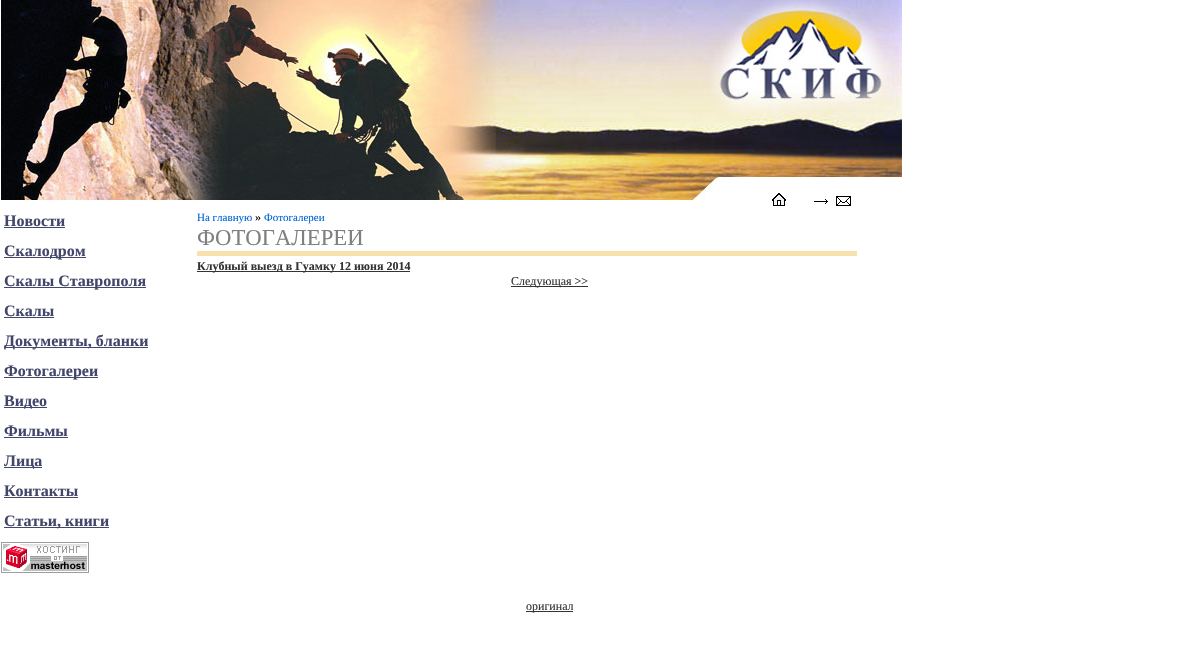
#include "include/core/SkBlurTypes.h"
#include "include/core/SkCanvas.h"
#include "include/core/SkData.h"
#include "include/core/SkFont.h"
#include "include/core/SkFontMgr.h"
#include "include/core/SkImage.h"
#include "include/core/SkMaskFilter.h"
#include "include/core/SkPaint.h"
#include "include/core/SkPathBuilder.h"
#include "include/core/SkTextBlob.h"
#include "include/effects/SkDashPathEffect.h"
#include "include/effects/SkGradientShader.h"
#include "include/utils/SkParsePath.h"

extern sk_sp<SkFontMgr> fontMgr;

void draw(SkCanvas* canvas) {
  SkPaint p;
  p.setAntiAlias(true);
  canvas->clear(SK_ColorWHITE);
  canvas->drawImageRect(SkImages::DeferredFromEncodedData(SkData::MakeFromFileName("images/1.png")), SkRect::MakeLTRB(1, 0, 717, 200), SkSamplingOptions());
  canvas->drawImageRect(SkImages::DeferredFromEncodedData(SkData::MakeFromFileName("images/2.png")), SkRect::MakeLTRB(717, 0, 902, 178), SkSamplingOptions());
  canvas->drawImageRect(SkImages::DeferredFromEncodedData(SkData::MakeFromFileName("images/3.png")), SkRect::MakeLTRB(772, 193, 786, 206), SkSamplingOptions());
  canvas->drawImageRect(SkImages::DeferredFromEncodedData(SkData::MakeFromFileName("images/4.png")), SkRect::MakeLTRB(814, 196, 851, 206), SkSamplingOptions());
  p.setColor(SkColorSetRGB(66, 70, 107));
  canvas->drawRect(SkRect::MakeLTRB(4, 227, 65, 228), p);
  canvas->drawRect(SkRect::MakeLTRB(4, 257, 86, 258), p);
  canvas->drawRect(SkRect::MakeLTRB(4, 287, 146, 288), p);
  canvas->drawRect(SkRect::MakeLTRB(4, 317, 54, 318), p);
  canvas->drawRect(SkRect::MakeLTRB(4, 347, 148, 348), p);
  canvas->drawRect(SkRect::MakeLTRB(4, 377, 98, 378), p);
  canvas->drawRect(SkRect::MakeLTRB(4, 407, 47, 408), p);
  canvas->drawRect(SkRect::MakeLTRB(4, 437, 68, 438), p);
  canvas->drawRect(SkRect::MakeLTRB(4, 467, 42, 468), p);
  canvas->drawRect(SkRect::MakeLTRB(4, 497, 78, 498), p);
  canvas->drawRect(SkRect::MakeLTRB(4, 527, 109, 528), p);
  canvas->drawImageRect(SkImages::DeferredFromEncodedData(SkData::MakeFromFileName("images/5.png")), SkRect::MakeLTRB(1, 542, 89, 573), SkSamplingOptions());
  p.setColor(SkColorSetRGB(247, 226, 173));
  canvas->drawRect(SkRect::MakeLTRB(197, 251, 857, 256), p);
  p.setColor(SkColorSetRGB(51, 51, 51));
  canvas->drawRect(SkRect::MakeLTRB(197, 271, 410, 272), p);
  canvas->drawRect(SkRect::MakeLTRB(511, 286, 588, 287), p);
  canvas->drawRect(SkRect::MakeLTRB(526, 611, 573, 612), p);
  SkFont font1(fontMgr->matchFamilyStyle("Liberation Serif", SkFontStyle::Bold()), 16);
  font1.setSubpixel(true);
  p.setColor(SkColorSetRGB(66, 70, 107));
  canvas->drawString("Новости", 4, 226, font1, p);
  canvas->drawString("Скалодром", 4, 256, font1, p);
  canvas->drawString("Скалы Ставрополя", 4, 286, font1, p);
  canvas->drawString("Скалы", 4, 316, font1, p);
  canvas->drawString("Документы, бланки", 4, 346, font1, p);
  canvas->drawString("Фотогалереи", 4, 376, font1, p);
  canvas->drawString("Видео", 4, 406, font1, p);
  canvas->drawString("Фильмы", 4, 436, font1, p);
  canvas->drawString("Лица", 4, 466, font1, p);
  canvas->drawString("Контакты", 4, 496, font1, p);
  canvas->drawString("Статьи, книги", 4, 526, font1, p);
  SkFont font2(fontMgr->matchFamilyStyle("Liberation Serif", SkFontStyle::Normal()), 11);
  font2.setSubpixel(true);
  p.setColor(SkColorSetRGB(0, 101, 214));
  canvas->drawString("На главную", 197, 221, font2, p);
  SkFont font3(fontMgr->matchFamilyStyle("Liberation Serif", SkFontStyle::Normal()), 12);
  font3.setSubpixel(true);
  p.setColor(SK_ColorBLACK);
  canvas->drawString("»", 255, 221, font3, p);
  p.setColor(SkColorSetRGB(0, 101, 214));
  canvas->drawString("Фотогалереи", 264, 221, font2, p);
  SkFont font4(fontMgr->matchFamilyStyle("Liberation Serif", SkFontStyle::Normal()), 22.75f);
  font4.setSubpixel(true);
  p.setColor(SkColorSetRGB(128, 128, 128));
  canvas->drawString("ФОТОГАЛЕРЕИ", 197, 245, font4, p);
  SkFont font5(fontMgr->matchFamilyStyle("Liberation Serif", SkFontStyle::Bold()), 12);
  font5.setSubpixel(true);
  p.setColor(SkColorSetRGB(51, 51, 51));
  canvas->drawString("Клубный выезд в Гуамку 12 июня 2014", 197, 270, font5, p);
  canvas->drawString("Следующая >>", 511, 285, font3, p);
  canvas->drawString("оригинал", 526, 610, font3, p);
}
